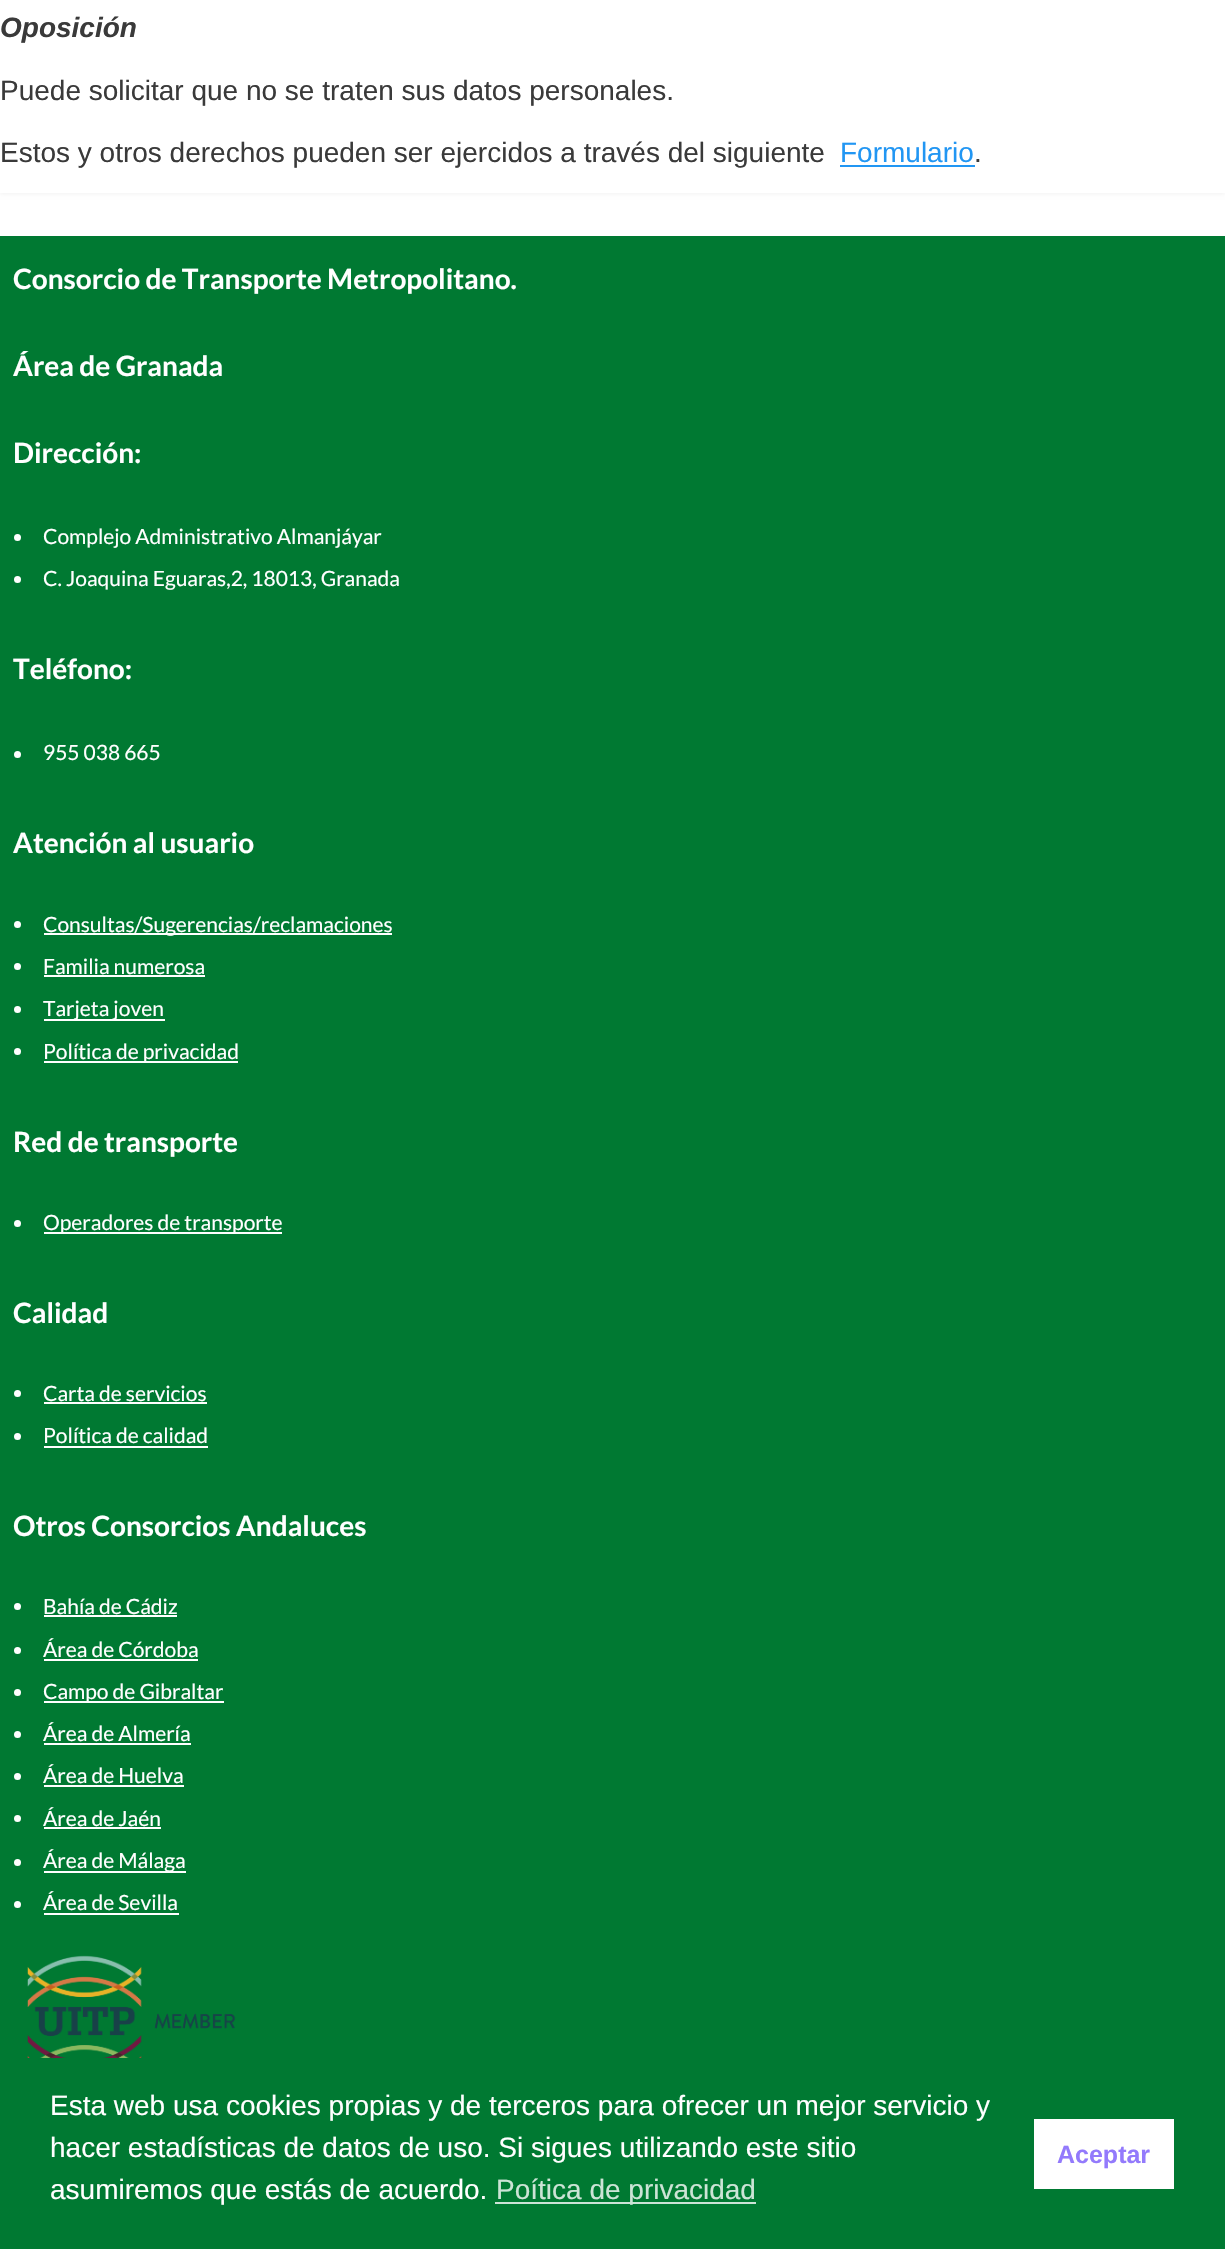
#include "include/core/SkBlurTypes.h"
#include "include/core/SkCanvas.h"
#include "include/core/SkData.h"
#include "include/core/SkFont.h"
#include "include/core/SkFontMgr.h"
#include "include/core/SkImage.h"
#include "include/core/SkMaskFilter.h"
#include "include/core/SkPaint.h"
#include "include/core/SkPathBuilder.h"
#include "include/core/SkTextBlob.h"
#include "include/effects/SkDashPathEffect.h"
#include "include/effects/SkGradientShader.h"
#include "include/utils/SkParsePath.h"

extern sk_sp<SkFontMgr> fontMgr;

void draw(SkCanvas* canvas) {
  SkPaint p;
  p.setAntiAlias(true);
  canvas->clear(SK_ColorWHITE);
  p.setColor(SkColorSetARGB(13, 0, 0, 0));
  p.setMaskFilter(SkMaskFilter::MakeBlur(kNormal_SkBlurStyle, 2));
  canvas->drawRect(SkRect::MakeLTRB(0, -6, 1225, 194), p);
  p.setMaskFilter(nullptr);
  p.setColor(SK_ColorWHITE);
  canvas->drawRect(SkRect::MakeLTRB(0, 0, 1225, 193), p);
  p.setColor(SkColorSetRGB(33, 150, 243));
  canvas->drawRect(SkRect::MakeLTRB(840, 165, 975, 167), p);
  p.setColor(SkColorSetRGB(0, 121, 50));
  canvas->drawRect(SkRect::MakeLTRB(0, 236, 1225, 2249), p);
  p.setColor(SK_ColorWHITE);
  canvas->drawCircle(17.5f, 537.5f, 3.5f, p);
  canvas->drawCircle(17.5f, 579.5f, 3.5f, p);
  canvas->drawCircle(17.5f, 754.5f, 3.5f, p);
  canvas->drawCircle(17.5f, 924.5f, 3.5f, p);
  canvas->drawRect(SkRect::MakeLTRB(44, 933, 392, 935), p);
  canvas->drawCircle(17.5f, 966.5f, 3.5f, p);
  canvas->drawRect(SkRect::MakeLTRB(44, 975, 205, 977), p);
  canvas->drawCircle(17.5f, 1009.5f, 3.5f, p);
  canvas->drawRect(SkRect::MakeLTRB(44, 1019, 165, 1021), p);
  canvas->drawCircle(17.5f, 1051.5f, 3.5f, p);
  canvas->drawRect(SkRect::MakeLTRB(44, 1061, 238, 1063), p);
  canvas->drawCircle(17.5f, 1223.5f, 3.5f, p);
  canvas->drawRect(SkRect::MakeLTRB(44, 1232, 282, 1234), p);
  canvas->drawCircle(17.5f, 1393.5f, 3.5f, p);
  canvas->drawRect(SkRect::MakeLTRB(44, 1402, 207, 1404), p);
  canvas->drawCircle(17.5f, 1436.5f, 3.5f, p);
  canvas->drawRect(SkRect::MakeLTRB(44, 1446, 208, 1448), p);
  canvas->drawCircle(17.5f, 1606.5f, 3.5f, p);
  canvas->drawRect(SkRect::MakeLTRB(44, 1615, 177, 1617), p);
  canvas->drawCircle(17.5f, 1650.5f, 3.5f, p);
  canvas->drawRect(SkRect::MakeLTRB(44, 1659, 198, 1661), p);
  canvas->drawCircle(17.5f, 1692.5f, 3.5f, p);
  canvas->drawRect(SkRect::MakeLTRB(44, 1701, 224, 1703), p);
  canvas->drawCircle(17.5f, 1734.5f, 3.5f, p);
  canvas->drawRect(SkRect::MakeLTRB(44, 1743, 191, 1745), p);
  canvas->drawCircle(17.5f, 1776.5f, 3.5f, p);
  canvas->drawRect(SkRect::MakeLTRB(44, 1785, 184, 1787), p);
  canvas->drawCircle(17.5f, 1818.5f, 3.5f, p);
  canvas->drawRect(SkRect::MakeLTRB(44, 1827, 161, 1829), p);
  canvas->drawCircle(17.5f, 1862.5f, 3.5f, p);
  canvas->drawRect(SkRect::MakeLTRB(44, 1871, 186, 1873), p);
  canvas->drawCircle(17.5f, 1904.5f, 3.5f, p);
  canvas->drawRect(SkRect::MakeLTRB(44, 1913, 179, 1915), p);
  canvas->drawImageRect(SkImages::DeferredFromEncodedData(SkData::MakeFromFileName("images/1.png")), SkRect::MakeLTRB(27, 1955, 236, 2058), SkSamplingOptions());
  p.setColor(SkColorSetRGB(204, 228, 214));
  canvas->drawRect(SkRect::MakeLTRB(495, 2202, 756, 2204), p);
  p.setColor(SK_ColorWHITE);
  canvas->drawRect(SkRect::MakeLTRB(1034, 2119, 1174, 2189), p);
  SkFont font1(fontMgr->matchFamilyStyle("Liberation Sans", SkFontStyle::BoldItalic()), 28);
  font1.setSubpixel(true);
  p.setColor(SkColorSetRGB(58, 58, 58));
  canvas->drawString("Oposición", 0, 37, font1, p);
  SkFont font2(fontMgr->matchFamilyStyle("Liberation Sans", SkFontStyle::Normal()), 28);
  font2.setSubpixel(true);
  canvas->drawString("Puede solicitar que no se traten sus datos personales.", 0, 100, font2, p);
  canvas->drawString("Estos y otros derechos pueden ser ejercidos a través del siguiente", 0, 162, font2, p);
  p.setColor(SkColorSetRGB(33, 150, 243));
  canvas->drawString("Formulario", 840, 162, font2, p);
  p.setColor(SkColorSetRGB(58, 58, 58));
  canvas->drawString(".", 974, 162, font2, p);
  SkFont font3(fontMgr->matchFamilyStyle("Lato", SkFontStyle::Bold()), 28);
  font3.setSubpixel(true);
  p.setColor(SK_ColorWHITE);
  canvas->drawString("Consorcio de Transporte Metropolitano.", 13, 289, font3, p);
  canvas->drawString("Área de Granada", 13, 376, font3, p);
  canvas->drawString("Dirección:", 13, 463, font3, p);
  SkFont font4(fontMgr->matchFamilyStyle("Lato", SkFontStyle::Normal()), 21);
  font4.setSubpixel(true);
  canvas->drawString("Complejo Administrativo Almanjáyar", 43, 544, font4, p);
  canvas->drawString("C. Joaquina Eguaras,2, 18013, Granada", 43, 586, font4, p);
  canvas->drawString("Teléfono:", 13, 679, font3, p);
  canvas->drawString("955 038 665", 43, 760, font4, p);
  canvas->drawString("Atención al usuario", 13, 853, font3, p);
  canvas->drawString("Consultas/Sugerencias/reclamaciones", 43, 932, font4, p);
  canvas->drawString("Familia numerosa", 43, 974, font4, p);
  canvas->drawString("Tarjeta joven", 43, 1016, font4, p);
  canvas->drawString("Política de privacidad", 43, 1059, font4, p);
  canvas->drawString("Red de transporte", 13, 1152, font3, p);
  canvas->drawString("Operadores de transporte", 43, 1230, font4, p);
  canvas->drawString("Calidad", 13, 1323, font3, p);
  canvas->drawString("Carta de servicios", 43, 1401, font4, p);
  canvas->drawString("Política de calidad", 43, 1443, font4, p);
  canvas->drawString("Otros Consorcios Andaluces", 13, 1536, font3, p);
  canvas->drawString("Bahía de Cádiz", 43, 1614, font4, p);
  canvas->drawString("Área de Córdoba", 43, 1657, font4, p);
  canvas->drawString("Campo de Gibraltar", 43, 1699, font4, p);
  canvas->drawString("Área de Almería", 43, 1741, font4, p);
  canvas->drawString("Área de Huelva", 43, 1783, font4, p);
  canvas->drawString("Área de Jaén", 43, 1826, font4, p);
  canvas->drawString("Área de Málaga", 43, 1868, font4, p);
  canvas->drawString("Área de Sevilla", 43, 1910, font4, p);
  canvas->drawString("Esta web usa cookies propias y de terceros para ofrecer un mejor servicio y", 50, 2115, font2, p);
  canvas->drawString("hacer estadísticas de datos de uso. Si sigues utilizando este sitio", 50, 2157, font2, p);
  canvas->drawString("asumiremos que estás de acuerdo.", 50, 2199, font2, p);
  p.setColor(SkColorSetRGB(204, 228, 214));
  canvas->drawString("Poítica de privacidad", 496, 2199, font2, p);
  SkFont font5(fontMgr->matchFamilyStyle("Liberation Sans", SkFontStyle::Bold()), 25);
  font5.setSubpixel(true);
  p.setColor(SkColorSetRGB(147, 122, 252));
  canvas->drawString("Aceptar", 1057, 2163, font5, p);
}
